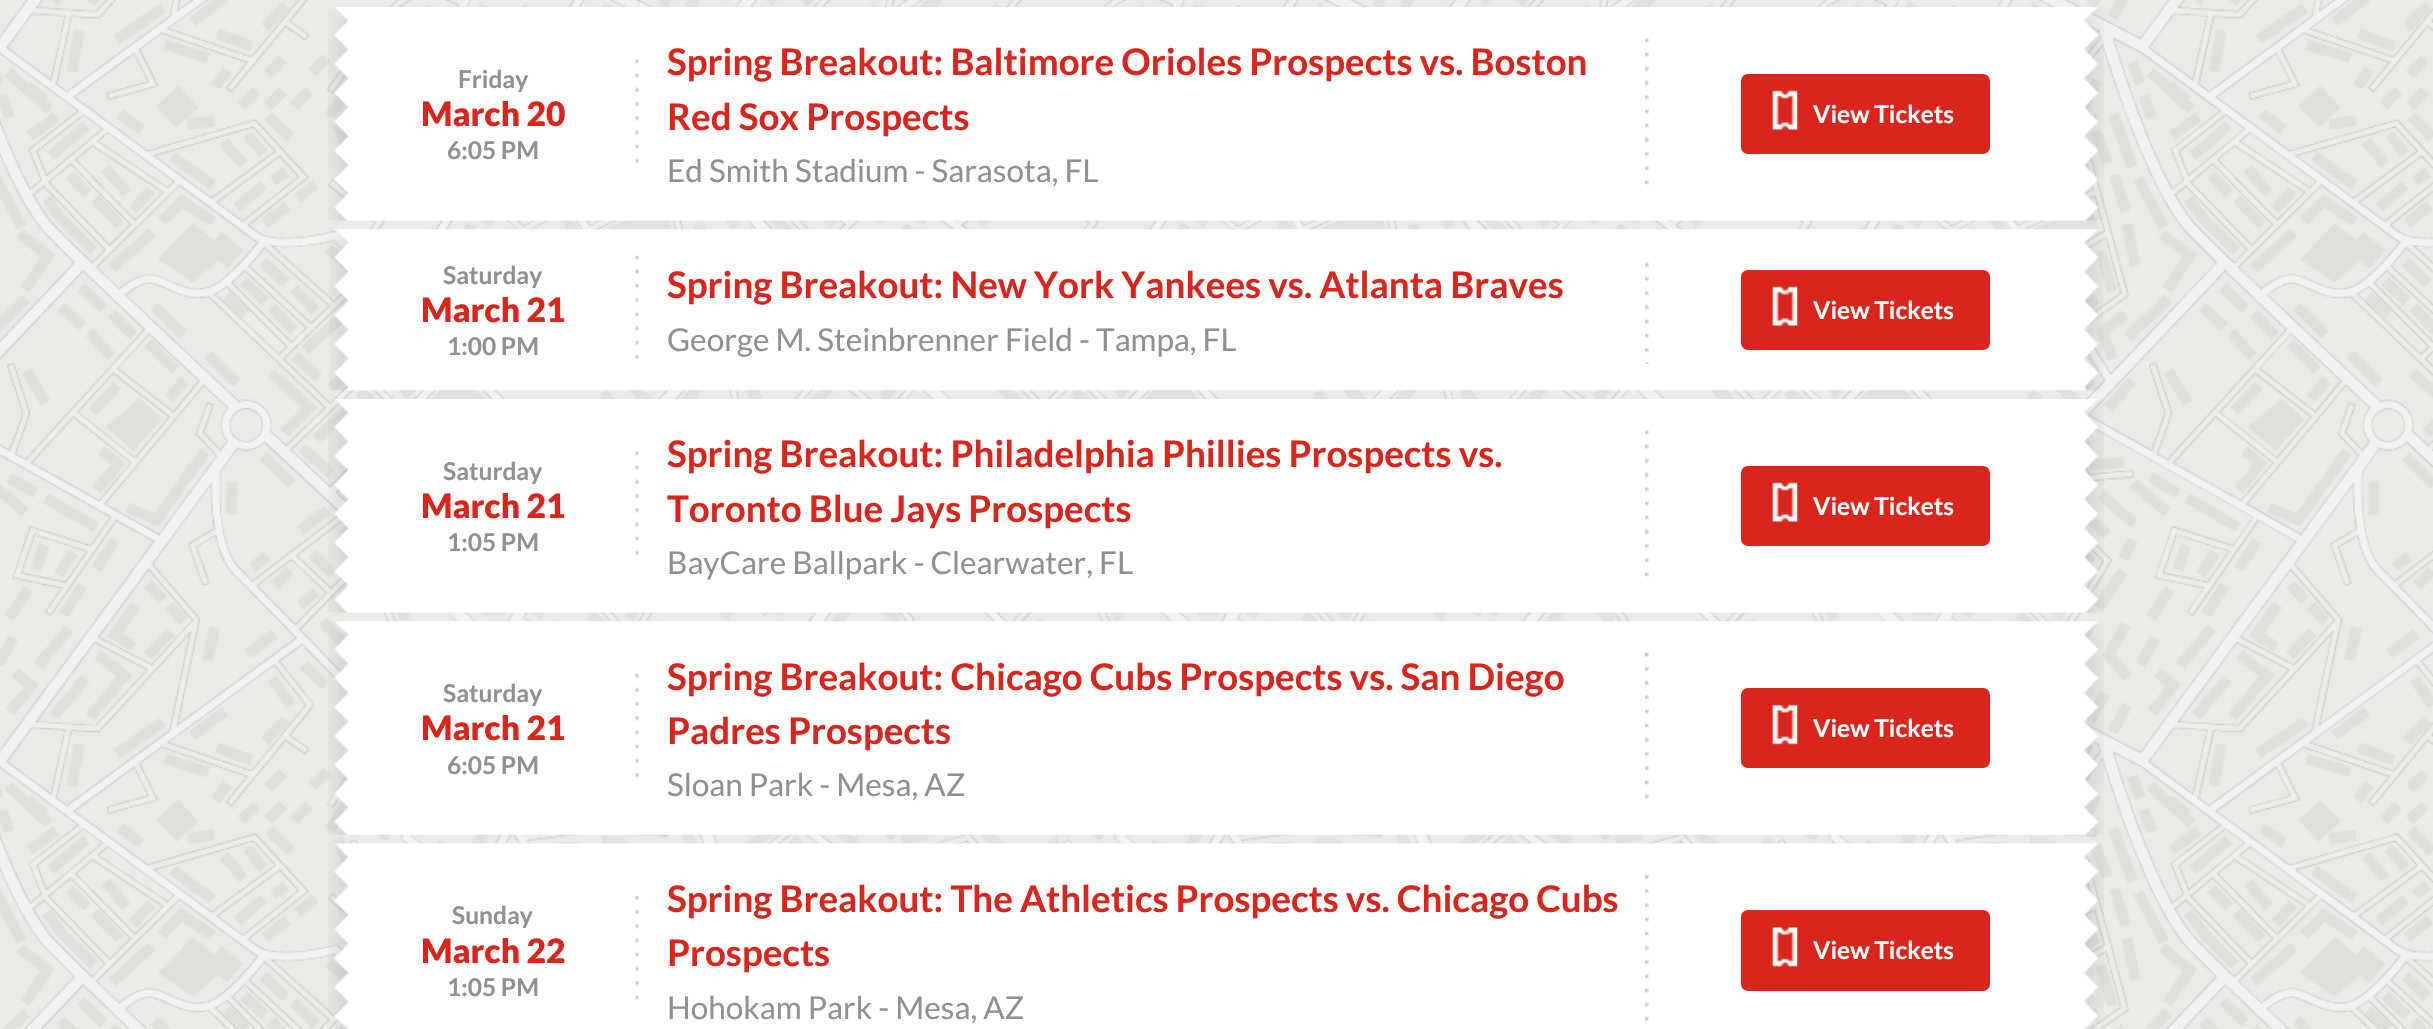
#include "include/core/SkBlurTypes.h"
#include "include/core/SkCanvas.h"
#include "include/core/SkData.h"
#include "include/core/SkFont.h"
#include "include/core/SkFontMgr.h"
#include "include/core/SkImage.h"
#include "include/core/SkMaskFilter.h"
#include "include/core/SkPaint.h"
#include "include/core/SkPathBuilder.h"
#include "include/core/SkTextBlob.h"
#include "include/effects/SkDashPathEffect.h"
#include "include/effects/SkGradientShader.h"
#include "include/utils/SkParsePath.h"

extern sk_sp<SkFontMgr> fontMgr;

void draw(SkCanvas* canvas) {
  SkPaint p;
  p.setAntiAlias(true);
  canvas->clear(SkColorSetRGB(232, 232, 232));
  canvas->drawImageRect(SkImages::DeferredFromEncodedData(SkData::MakeFromFileName("images/1.png")), SkRect::MakeLTRB(0, 0, 2433, 1029), SkSamplingOptions());
  canvas->drawImageRect(SkImages::DeferredFromEncodedData(SkData::MakeFromFileName("images/2.png")), SkRect::MakeLTRB(328, 7, 2104, 221), SkSamplingOptions());
  canvas->drawImageRect(SkImages::DeferredFromEncodedData(SkData::MakeFromFileName("images/3.png")), SkRect::MakeLTRB(635, 59, 639, 164), SkSamplingOptions());
  canvas->drawImageRect(SkImages::DeferredFromEncodedData(SkData::MakeFromFileName("images/4.png")), SkRect::MakeLTRB(1645, 38, 1649, 185), SkSamplingOptions());
  p.setColor(SkColorSetRGB(218, 37, 28));
  canvas->drawRoundRect(SkRect::MakeLTRB(1741, 74, 1990, 154), 7, 7, p);
  canvas->drawImageRect(SkImages::DeferredFromEncodedData(SkData::MakeFromFileName("images/5.png")), SkRect::MakeLTRB(1772, 90, 1798, 130), SkSamplingOptions());
  canvas->drawImageRect(SkImages::DeferredFromEncodedData(SkData::MakeFromFileName("images/6.png")), SkRect::MakeLTRB(329, 229, 2103, 391), SkSamplingOptions());
  canvas->drawImageRect(SkImages::DeferredFromEncodedData(SkData::MakeFromFileName("images/7.png")), SkRect::MakeLTRB(635, 255, 639, 360), SkSamplingOptions());
  canvas->drawImageRect(SkImages::DeferredFromEncodedData(SkData::MakeFromFileName("images/8.png")), SkRect::MakeLTRB(1645, 262, 1649, 364), SkSamplingOptions());
  canvas->drawRoundRect(SkRect::MakeLTRB(1741, 270, 1990, 350), 7, 7, p);
  canvas->drawImageRect(SkImages::DeferredFromEncodedData(SkData::MakeFromFileName("images/5.png")), SkRect::MakeLTRB(1772, 286, 1798, 326), SkSamplingOptions());
  canvas->drawImageRect(SkImages::DeferredFromEncodedData(SkData::MakeFromFileName("images/9.png")), SkRect::MakeLTRB(328, 399, 2104, 613), SkSamplingOptions());
  canvas->drawImageRect(SkImages::DeferredFromEncodedData(SkData::MakeFromFileName("images/3.png")), SkRect::MakeLTRB(635, 451, 639, 556), SkSamplingOptions());
  canvas->drawImageRect(SkImages::DeferredFromEncodedData(SkData::MakeFromFileName("images/10.png")), SkRect::MakeLTRB(1645, 430, 1649, 577), SkSamplingOptions());
  canvas->drawRoundRect(SkRect::MakeLTRB(1741, 466, 1990, 546), 7, 7, p);
  canvas->drawImageRect(SkImages::DeferredFromEncodedData(SkData::MakeFromFileName("images/5.png")), SkRect::MakeLTRB(1772, 482, 1798, 522), SkSamplingOptions());
  canvas->drawImageRect(SkImages::DeferredFromEncodedData(SkData::MakeFromFileName("images/11.png")), SkRect::MakeLTRB(328, 621, 2104, 835), SkSamplingOptions());
  canvas->drawImageRect(SkImages::DeferredFromEncodedData(SkData::MakeFromFileName("images/12.png")), SkRect::MakeLTRB(635, 673, 639, 778), SkSamplingOptions());
  canvas->drawImageRect(SkImages::DeferredFromEncodedData(SkData::MakeFromFileName("images/13.png")), SkRect::MakeLTRB(1645, 652, 1649, 799), SkSamplingOptions());
  canvas->drawRoundRect(SkRect::MakeLTRB(1741, 688, 1990, 768), 7, 7, p);
  canvas->drawImageRect(SkImages::DeferredFromEncodedData(SkData::MakeFromFileName("images/14.png")), SkRect::MakeLTRB(1772, 704, 1798, 745), SkSamplingOptions());
  canvas->drawImageRect(SkImages::DeferredFromEncodedData(SkData::MakeFromFileName("images/15.png")), SkRect::MakeLTRB(328, 843, 2104, 1029), SkSamplingOptions());
  canvas->drawImageRect(SkImages::DeferredFromEncodedData(SkData::MakeFromFileName("images/16.png")), SkRect::MakeLTRB(635, 896, 639, 1000), SkSamplingOptions());
  canvas->drawImageRect(SkImages::DeferredFromEncodedData(SkData::MakeFromFileName("images/17.png")), SkRect::MakeLTRB(1645, 875, 1649, 1022), SkSamplingOptions());
  canvas->drawRoundRect(SkRect::MakeLTRB(1741, 910, 1990, 991), 7, 7, p);
  canvas->drawImageRect(SkImages::DeferredFromEncodedData(SkData::MakeFromFileName("images/18.png")), SkRect::MakeLTRB(1772, 927, 1798, 967), SkSamplingOptions());
  SkFont font1(fontMgr->matchFamilyStyle("Lato", SkFontStyle::Bold()), 24.5f);
  font1.setSubpixel(true);
  p.setColor(SkColorSetRGB(144, 144, 144));
  canvas->drawString("Friday", 458, 88, font1, p);
  SkFont font2(fontMgr->matchFamilyStyle("Lato", SkFontStyle(900, SkFontStyle::kNormal_Width, SkFontStyle::kUpright_Slant)), 33.5f);
  font2.setSubpixel(true);
  p.setColor(SkColorSetRGB(218, 37, 28));
  canvas->drawString("March 20", 421, 126, font2, p);
  p.setColor(SkColorSetRGB(144, 144, 144));
  canvas->drawString("6:05 PM", 447, 159, font1, p);
  SkFont font3(fontMgr->matchFamilyStyle("Lato", SkFontStyle::Bold()), 36.75f);
  font3.setSubpixel(true);
  p.setColor(SkColorSetRGB(218, 37, 28));
  canvas->drawString("Spring Breakout: Baltimore Orioles Prospects vs. Boston", 667, 75, font3, p);
  canvas->drawString("Red Sox Prospects", 667, 130, font3, p);
  SkFont font4(fontMgr->matchFamilyStyle("Lato", SkFontStyle::Normal()), 31.5f);
  font4.setSubpixel(true);
  p.setColor(SkColorSetRGB(144, 144, 144));
  canvas->drawString("Ed Smith Stadium - Sarasota, FL", 667, 182, font4, p);
  p.setColor(SK_ColorWHITE);
  canvas->drawString("View Tickets", 1813, 123, font1, p);
  p.setColor(SkColorSetRGB(144, 144, 144));
  canvas->drawString("Saturday", 443, 284, font1, p);
  p.setColor(SkColorSetRGB(218, 37, 28));
  canvas->drawString("March 21", 421, 322, font2, p);
  p.setColor(SkColorSetRGB(144, 144, 144));
  canvas->drawString("1:00 PM", 447, 355, font1, p);
  p.setColor(SkColorSetRGB(218, 37, 28));
  canvas->drawString("Spring Breakout: New York Yankees vs. Atlanta Braves", 667, 298, font3, p);
  p.setColor(SkColorSetRGB(144, 144, 144));
  canvas->drawString("George M. Steinbrenner Field - Tampa, FL", 667, 351, font4, p);
  p.setColor(SK_ColorWHITE);
  canvas->drawString("View Tickets", 1813, 319, font1, p);
  p.setColor(SkColorSetRGB(144, 144, 144));
  canvas->drawString("Saturday", 443, 480, font1, p);
  p.setColor(SkColorSetRGB(218, 37, 28));
  canvas->drawString("March 21", 421, 518, font2, p);
  p.setColor(SkColorSetRGB(144, 144, 144));
  canvas->drawString("1:05 PM", 447, 551, font1, p);
  p.setColor(SkColorSetRGB(218, 37, 28));
  canvas->drawString("Spring Breakout: Philadelphia Phillies Prospects vs.", 667, 467, font3, p);
  canvas->drawString("Toronto Blue Jays Prospects", 667, 522, font3, p);
  p.setColor(SkColorSetRGB(144, 144, 144));
  canvas->drawString("BayCare Ballpark - Clearwater, FL", 667, 574, font4, p);
  p.setColor(SK_ColorWHITE);
  canvas->drawString("View Tickets", 1813, 515, font1, p);
  p.setColor(SkColorSetRGB(144, 144, 144));
  canvas->drawString("Saturday", 443, 702, font1, p);
  p.setColor(SkColorSetRGB(218, 37, 28));
  canvas->drawString("March 21", 421, 740, font2, p);
  p.setColor(SkColorSetRGB(144, 144, 144));
  canvas->drawString("6:05 PM", 447, 774, font1, p);
  p.setColor(SkColorSetRGB(218, 37, 28));
  canvas->drawString("Spring Breakout: Chicago Cubs Prospects vs. San Diego", 667, 690, font3, p);
  canvas->drawString("Padres Prospects", 667, 744, font3, p);
  p.setColor(SkColorSetRGB(144, 144, 144));
  canvas->drawString("Sloan Park - Mesa, AZ", 667, 796, font4, p);
  p.setColor(SK_ColorWHITE);
  canvas->drawString("View Tickets", 1813, 737, font1, p);
  p.setColor(SkColorSetRGB(144, 144, 144));
  canvas->drawString("Sunday", 452, 924, font1, p);
  p.setColor(SkColorSetRGB(218, 37, 28));
  canvas->drawString("March 22", 421, 963, font2, p);
  p.setColor(SkColorSetRGB(144, 144, 144));
  canvas->drawString("1:05 PM", 447, 996, font1, p);
  p.setColor(SkColorSetRGB(218, 37, 28));
  canvas->drawString("Spring Breakout: The Athletics Prospects vs. Chicago Cubs", 667, 912, font3, p);
  canvas->drawString("Prospects", 667, 966, font3, p);
  p.setColor(SkColorSetRGB(144, 144, 144));
  canvas->drawString("Hohokam Park - Mesa, AZ", 667, 1019, font4, p);
  p.setColor(SK_ColorWHITE);
  canvas->drawString("View Tickets", 1813, 959, font1, p);
}
